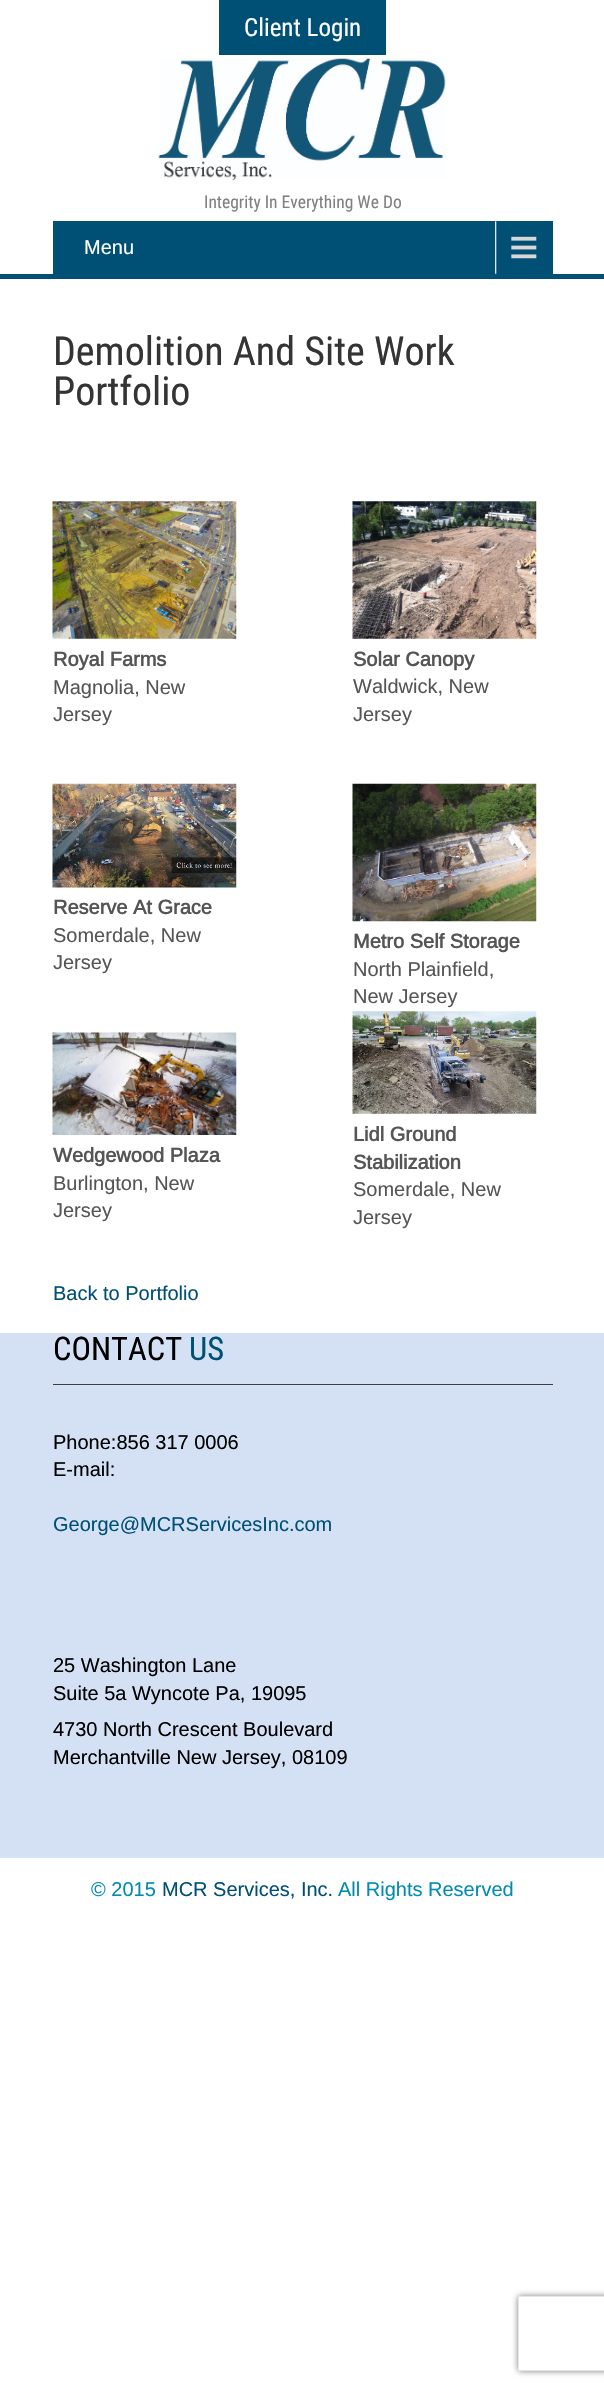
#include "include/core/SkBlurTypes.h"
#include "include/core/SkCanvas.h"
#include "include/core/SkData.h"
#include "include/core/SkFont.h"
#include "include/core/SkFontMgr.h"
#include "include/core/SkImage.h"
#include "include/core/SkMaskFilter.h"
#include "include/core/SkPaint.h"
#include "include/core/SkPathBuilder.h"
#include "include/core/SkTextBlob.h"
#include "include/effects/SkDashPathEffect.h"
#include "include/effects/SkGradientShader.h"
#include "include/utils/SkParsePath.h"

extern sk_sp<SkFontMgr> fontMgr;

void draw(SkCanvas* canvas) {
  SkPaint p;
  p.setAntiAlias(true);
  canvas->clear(SK_ColorWHITE);
  p.setColor(SkColorSetRGB(0, 80, 117));
  canvas->drawRect(SkRect::MakeLTRB(219, 0, 386, 55), p);
  canvas->drawRect(SkRect::MakeLTRB(0, 274, 604, 279), p);
  canvas->drawImageRect(SkImages::DeferredFromEncodedData(SkData::MakeFromFileName("images/1.png")), SkRect::MakeLTRB(158, 58, 446, 180), SkSamplingOptions());
  canvas->drawRect(SkRect::MakeLTRB(53, 221, 553, 274), p);
  canvas->drawImageRect(SkImages::DeferredFromEncodedData(SkData::MakeFromFileName("images/2.png")), SkRect::MakeLTRB(495, 221, 537, 274), SkSamplingOptions());
  canvas->drawImageRect(SkImages::DeferredFromEncodedData(SkData::MakeFromFileName("images/3.png")), SkRect::MakeLTRB(52, 501, 237, 639), SkSamplingOptions());
  canvas->drawImageRect(SkImages::DeferredFromEncodedData(SkData::MakeFromFileName("images/4.png")), SkRect::MakeLTRB(52, 783, 237, 888), SkSamplingOptions());
  canvas->drawImageRect(SkImages::DeferredFromEncodedData(SkData::MakeFromFileName("images/5.png")), SkRect::MakeLTRB(52, 1032, 237, 1135), SkSamplingOptions());
  canvas->drawImageRect(SkImages::DeferredFromEncodedData(SkData::MakeFromFileName("images/6.png")), SkRect::MakeLTRB(352, 501, 537, 639), SkSamplingOptions());
  canvas->drawImageRect(SkImages::DeferredFromEncodedData(SkData::MakeFromFileName("images/7.png")), SkRect::MakeLTRB(352, 783, 537, 922), SkSamplingOptions());
  canvas->drawImageRect(SkImages::DeferredFromEncodedData(SkData::MakeFromFileName("images/8.png")), SkRect::MakeLTRB(352, 1011, 537, 1114), SkSamplingOptions());
  p.setColor(SkColorSetRGB(212, 225, 244));
  canvas->drawRect(SkRect::MakeLTRB(0, 1333, 604, 1858), p);
  p.setColor(SkColorSetRGB(63, 63, 63));
  canvas->drawRect(SkRect::MakeLTRB(53, 1384, 553, 1385), p);
  canvas->save();
  canvas->clipPath(SkPathBuilder(SkPathFillType::kEvenOdd).moveTo(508, 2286).lineTo(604, 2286).lineTo(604, 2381).lineTo(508, 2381).close().moveTo(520.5f, 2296).lineTo(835.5f, 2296).cubicTo(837, 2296, 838, 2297, 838, 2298.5f).lineTo(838, 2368.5f).cubicTo(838, 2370, 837, 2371, 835.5f, 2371).lineTo(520.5f, 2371).cubicTo(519, 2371, 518, 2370, 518, 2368.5f).lineTo(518, 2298.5f).cubicTo(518, 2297, 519, 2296, 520.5f, 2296).close().detach(), true);
  p.setColor(SkColorSetRGB(128, 128, 128));
  p.setMaskFilter(SkMaskFilter::MakeBlur(kNormal_SkBlurStyle, 3));
  canvas->drawRoundRect(SkRect::MakeLTRB(518, 2296, 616, 2371), 2.5f, 2.5f, p);
  p.setMaskFilter(nullptr);
  canvas->restore();
  p.setColor(SkColorSetRGB(229, 229, 228));
  canvas->drawPath(SkPathBuilder(SkPathFillType::kEvenOdd).moveTo(520, 2296).cubicTo(519, 2296, 518, 2297, 518, 2298).lineTo(518, 2368).cubicTo(518, 2370, 519, 2371, 520, 2371).lineTo(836, 2371).cubicTo(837, 2371, 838, 2370, 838, 2368).lineTo(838, 2298).cubicTo(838, 2297, 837, 2296, 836, 2296).close().moveTo(519, 2297).lineTo(519, 2370).lineTo(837, 2370).lineTo(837, 2297).close().detach(), p);
  SkFont font1(fontMgr->matchFamilyStyle("Roboto Condensed", SkFontStyle::Normal()), 25);
  font1.setSubpixel(true);
  p.setColor(SK_ColorWHITE);
  canvas->drawString("Client Login", 244, 36, font1, p);
  SkFont font2(fontMgr->matchFamilyStyle("Roboto Condensed", SkFontStyle::Normal()), 17.5f);
  font2.setSubpixel(true);
  p.setColor(SkColorSetRGB(130, 129, 129));
  canvas->drawString("Integrity In Everything We Do", 204, 208, font2, p);
  SkFont font3(fontMgr->matchFamilyStyle("Arimo", SkFontStyle::Normal()), 20);
  font3.setSubpixel(true);
  p.setColor(SK_ColorWHITE);
  canvas->drawString("Menu", 84, 254, font3, p);
  SkFont font4(fontMgr->matchFamilyStyle("Roboto Condensed", SkFontStyle::Normal()), 40);
  font4.setSubpixel(true);
  p.setColor(SkColorSetRGB(52, 52, 52));
  canvas->drawString("Demolition And Site Work", 53, 365, font4, p);
  canvas->drawString("Portfolio", 53, 405, font4, p);
  SkFont font5(fontMgr->matchFamilyStyle("Arimo", SkFontStyle::Bold()), 20);
  font5.setSubpixel(true);
  p.setColor(SkColorSetRGB(85, 85, 85));
  canvas->drawString("Royal Farms", 53, 666, font5, p);
  canvas->drawString("Magnolia, New", 53, 694, font3, p);
  canvas->drawString("Jersey", 53, 721, font3, p);
  canvas->drawString("Reserve At Grace", 53, 914, font5, p);
  canvas->drawString("Somerdale, New", 53, 942, font3, p);
  canvas->drawString("Jersey", 53, 969, font3, p);
  canvas->drawString("Wedgewood Plaza", 53, 1162, font5, p);
  canvas->drawString("Burlington, New", 53, 1190, font3, p);
  canvas->drawString("Jersey", 53, 1217, font3, p);
  canvas->drawString("Solar Canopy", 353, 666, font5, p);
  canvas->drawString("Waldwick, New", 353, 693, font3, p);
  canvas->drawString("Jersey", 353, 721, font3, p);
  canvas->drawString("Metro Self Storage", 353, 948, font5, p);
  canvas->drawString("North Plainfield,", 353, 976, font3, p);
  canvas->drawString("New Jersey", 353, 1003, font3, p);
  canvas->drawString("Lidl Ground", 353, 1141, font5, p);
  canvas->drawString("Stabilization", 353, 1169, font5, p);
  canvas->drawString("Somerdale, New", 353, 1196, font3, p);
  canvas->drawString("Jersey", 353, 1224, font3, p);
  p.setColor(SkColorSetRGB(0, 80, 117));
  canvas->drawString("Back to Portfolio", 53, 1300, font3, p);
  SkFont font6(fontMgr->matchFamilyStyle("Roboto Condensed", SkFontStyle::Normal()), 32.5f);
  font6.setSubpixel(true);
  p.setColor(SK_ColorBLACK);
  canvas->drawString("CONTACT", 53, 1360, font6, p);
  p.setColor(SkColorSetRGB(0, 80, 117));
  canvas->drawString("US", 189, 1360, font6, p);
  p.setColor(SK_ColorBLACK);
  canvas->drawString("Phone:856 317 0006", 53, 1449, font3, p);
  canvas->drawString("E-mail:", 53, 1476, font3, p);
  p.setColor(SkColorSetRGB(0, 80, 117));
  canvas->drawString("George@MCRServicesInc.com", 53, 1531, font3, p);
  p.setColor(SK_ColorBLACK);
  canvas->drawString("25 Washington Lane", 53, 1672, font3, p);
  canvas->drawString("Suite 5a Wyncote Pa, 19095", 53, 1700, font3, p);
  canvas->drawString("4730 North Crescent Boulevard", 53, 1736, font3, p);
  canvas->drawString("Merchantville New Jersey, 08109", 53, 1764, font3, p);
  p.setColor(SkColorSetRGB(0, 140, 175));
  canvas->drawString("© 2015", 91, 1896, font3, p);
  p.setColor(SkColorSetRGB(0, 80, 117));
  canvas->drawString("MCR Services, Inc.", 162, 1896, font3, p);
  p.setColor(SkColorSetRGB(0, 140, 175));
  canvas->drawString("All Rights Reserved", 338, 1896, font3, p);
}
